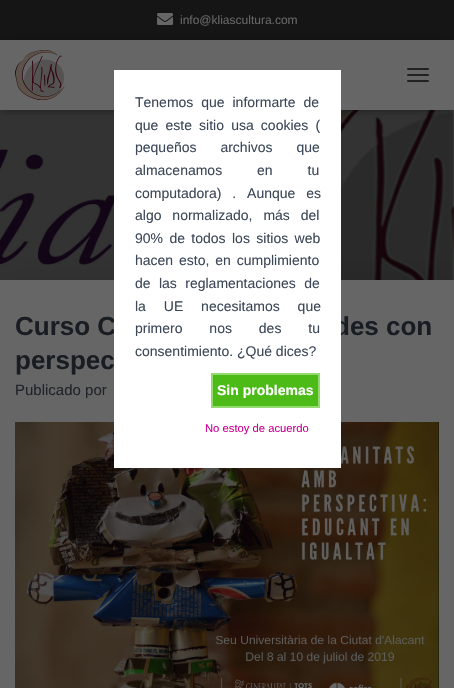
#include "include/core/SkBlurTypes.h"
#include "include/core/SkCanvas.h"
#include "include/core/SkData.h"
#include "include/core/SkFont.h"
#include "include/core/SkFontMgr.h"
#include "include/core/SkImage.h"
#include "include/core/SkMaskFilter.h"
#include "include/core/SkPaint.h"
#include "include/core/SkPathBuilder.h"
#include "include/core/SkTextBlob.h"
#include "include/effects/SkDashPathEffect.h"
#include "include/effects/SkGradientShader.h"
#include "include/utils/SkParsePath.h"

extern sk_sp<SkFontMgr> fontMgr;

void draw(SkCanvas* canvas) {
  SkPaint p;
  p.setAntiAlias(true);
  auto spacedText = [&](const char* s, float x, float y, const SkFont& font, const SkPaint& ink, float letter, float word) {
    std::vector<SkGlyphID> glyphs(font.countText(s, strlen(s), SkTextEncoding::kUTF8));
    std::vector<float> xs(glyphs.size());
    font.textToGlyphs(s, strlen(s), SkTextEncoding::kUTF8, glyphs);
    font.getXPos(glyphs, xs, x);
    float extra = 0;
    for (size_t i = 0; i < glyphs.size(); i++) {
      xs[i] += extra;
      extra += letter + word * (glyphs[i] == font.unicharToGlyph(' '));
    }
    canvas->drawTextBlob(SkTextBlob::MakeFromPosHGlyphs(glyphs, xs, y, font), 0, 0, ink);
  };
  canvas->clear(SK_ColorWHITE);
  p.setColor(SkColorSetRGB(22, 21, 22));
  canvas->drawRect(SkRect::MakeLTRB(0, 0, 454, 40), p);
  canvas->drawImageRect(SkImages::DeferredFromEncodedData(SkData::MakeFromFileName("images/1.png")), SkRect::MakeLTRB(157, 13, 173, 25), SkSamplingOptions());
  canvas->drawImageRect(SkImages::DeferredFromEncodedData(SkData::MakeFromFileName("images/3.png")), SkRect::MakeLTRB(0, 110, 454, 280), SkSamplingOptions());
  p.setColor(SkColorSetARGB(26, 0, 0, 0));
  p.setMaskFilter(SkMaskFilter::MakeBlur(kNormal_SkBlurStyle, 2.5f));
  canvas->drawRect(SkRect::MakeLTRB(2, 46, 452, 112), p);
  p.setMaskFilter(nullptr);
  p.setColor(SkColorSetARGB(31, 0, 0, 0));
  p.setMaskFilter(SkMaskFilter::MakeBlur(kNormal_SkBlurStyle, 5));
  canvas->drawRect(SkRect::MakeLTRB(0, 41, 454, 111), p);
  p.setMaskFilter(nullptr);
  p.setColor(SkColorSetARGB(107, 0, 0, 0));
  p.setMaskFilter(SkMaskFilter::MakeBlur(kNormal_SkBlurStyle, 5));
  canvas->drawRect(SkRect::MakeLTRB(6, 47, 448, 105), p);
  p.setMaskFilter(nullptr);
  p.setColor(SkColorSetRGB(102, 102, 102));
  canvas->drawRect(SkRect::MakeLTRB(0, 40, 454, 110), p);
  canvas->drawImageRect(SkImages::DeferredFromEncodedData(SkData::MakeFromFileName("images/2.png")), SkRect::MakeLTRB(15, 50, 65, 100), SkSamplingOptions());
  p.setColor(SkColorSetRGB(34, 34, 34));
  canvas->drawRoundRect(SkRect::MakeLTRB(407, 68, 429, 70), 1, 1, p);
  canvas->drawRoundRect(SkRect::MakeLTRB(407, 74, 429, 76), 1, 1, p);
  canvas->drawRoundRect(SkRect::MakeLTRB(407, 80, 429, 82), 1, 1, p);
  p.setColor(SkColorSetARGB(31, 0, 0, 0));
  p.setMaskFilter(SkMaskFilter::MakeBlur(kNormal_SkBlurStyle, 15));
  canvas->drawRect(SkRect::MakeLTRB(-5, 281, 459, 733), p);
  p.setMaskFilter(nullptr);
  p.setColor(SkColorSetRGB(102, 102, 102));
  canvas->drawRect(SkRect::MakeLTRB(0, 280, 454, 688), p);
  canvas->drawImageRect(SkImages::DeferredFromEncodedData(SkData::MakeFromFileName("images/4.png")), SkRect::MakeLTRB(15, 422, 439, 688), SkSamplingOptions());
  SkFont font1(fontMgr->matchFamilyStyle("Liberation Sans", SkFontStyle::Normal()), 12);
  font1.setSubpixel(true);
  canvas->drawString("info@kliascultura.com", 180, 24, font1, p);
  SkFont font2(fontMgr->matchFamilyStyle("Liberation Sans", SkFontStyle::Bold()), 26);
  font2.setSubpixel(true);
  p.setColor(SkColorSetRGB(24, 29, 35));
  canvas->drawString("Curso C", 15, 335, font2, p);
  canvas->drawString("des con", 334, 335, font2, p);
  canvas->drawString("perspec", 15, 369, font2, p);
  SkFont font3(fontMgr->matchFamilyStyle("Liberation Sans", SkFontStyle::Normal()), 15);
  font3.setSubpixel(true);
  p.setColor(SkColorSetRGB(32, 36, 42));
  canvas->drawString("Publicado por", 15, 395, font3, p);
  p.setColor(SK_ColorWHITE);
  canvas->drawRect(SkRect::MakeLTRB(114, 70, 341, 468), p);
  SkFont font4(fontMgr->matchFamilyStyle("Liberation Sans", SkFontStyle::Normal()), 14);
  font4.setSubpixel(true);
  p.setColor(SkColorSetRGB(60, 72, 88));
  spacedText("Tenemos que informarte de", 135, 107, font4, p, 0, 4);
  spacedText("que este sitio usa cookies (", 135, 130, font4, p, 0, 3.25f);
  spacedText("pequeños archivos que", 135, 152, font4, p, 0, 20);
  spacedText("almacenamos en tu", 135, 175, font4, p, 0, 31);
  spacedText("computadora) . Aunque es", 135, 198, font4, p, 0, 7);
  spacedText("algo normalizado, más del", 135, 220, font4, p, 0, 7);
  spacedText("90% de todos los sitios web", 135, 243, font4, p, 0, 2.5f);
  spacedText("hacen esto, en cumplimiento", 135, 265, font4, p, 0, 2);
  spacedText("de las reglamentaciones de", 135, 288, font4, p, 0, 4.5f);
  spacedText("la UE necesitamos que", 135, 311, font4, p, 0, 14);
  spacedText("primero nos des tu", 135, 333, font4, p, 0, 23);
  canvas->drawString("consentimiento. ¿Qué dices?", 135, 356, font4, p);
  p.setColor(SkColorSetRGB(76, 187, 23));
  canvas->drawRect(SkRect::MakeLTRB(212, 374, 319, 407), p);
  p.setStyle(SkPaint::kStroke_Style);
  p.setStrokeWidth(2);
  p.setColor(SkColorSetRGB(147, 219, 112));
  canvas->drawRect(SkRect::MakeLTRB(212, 374, 319, 407), p);
  SkFont font5(fontMgr->matchFamilyStyle("Liberation Sans", SkFontStyle::Bold()), 14);
  font5.setSubpixel(true);
  p.setStyle(SkPaint::kFill_Style);
  p.setColor(SK_ColorWHITE);
  canvas->drawString("Sin problemas", 217, 395, font5, p);
  SkFont font6(fontMgr->matchFamilyStyle("Liberation Sans", SkFontStyle::Normal()), 11.25f);
  font6.setSubpixel(true);
  p.setColor(SkColorSetRGB(204, 0, 149));
  canvas->drawString("No estoy de acuerdo", 205, 432, font6, p);
}
